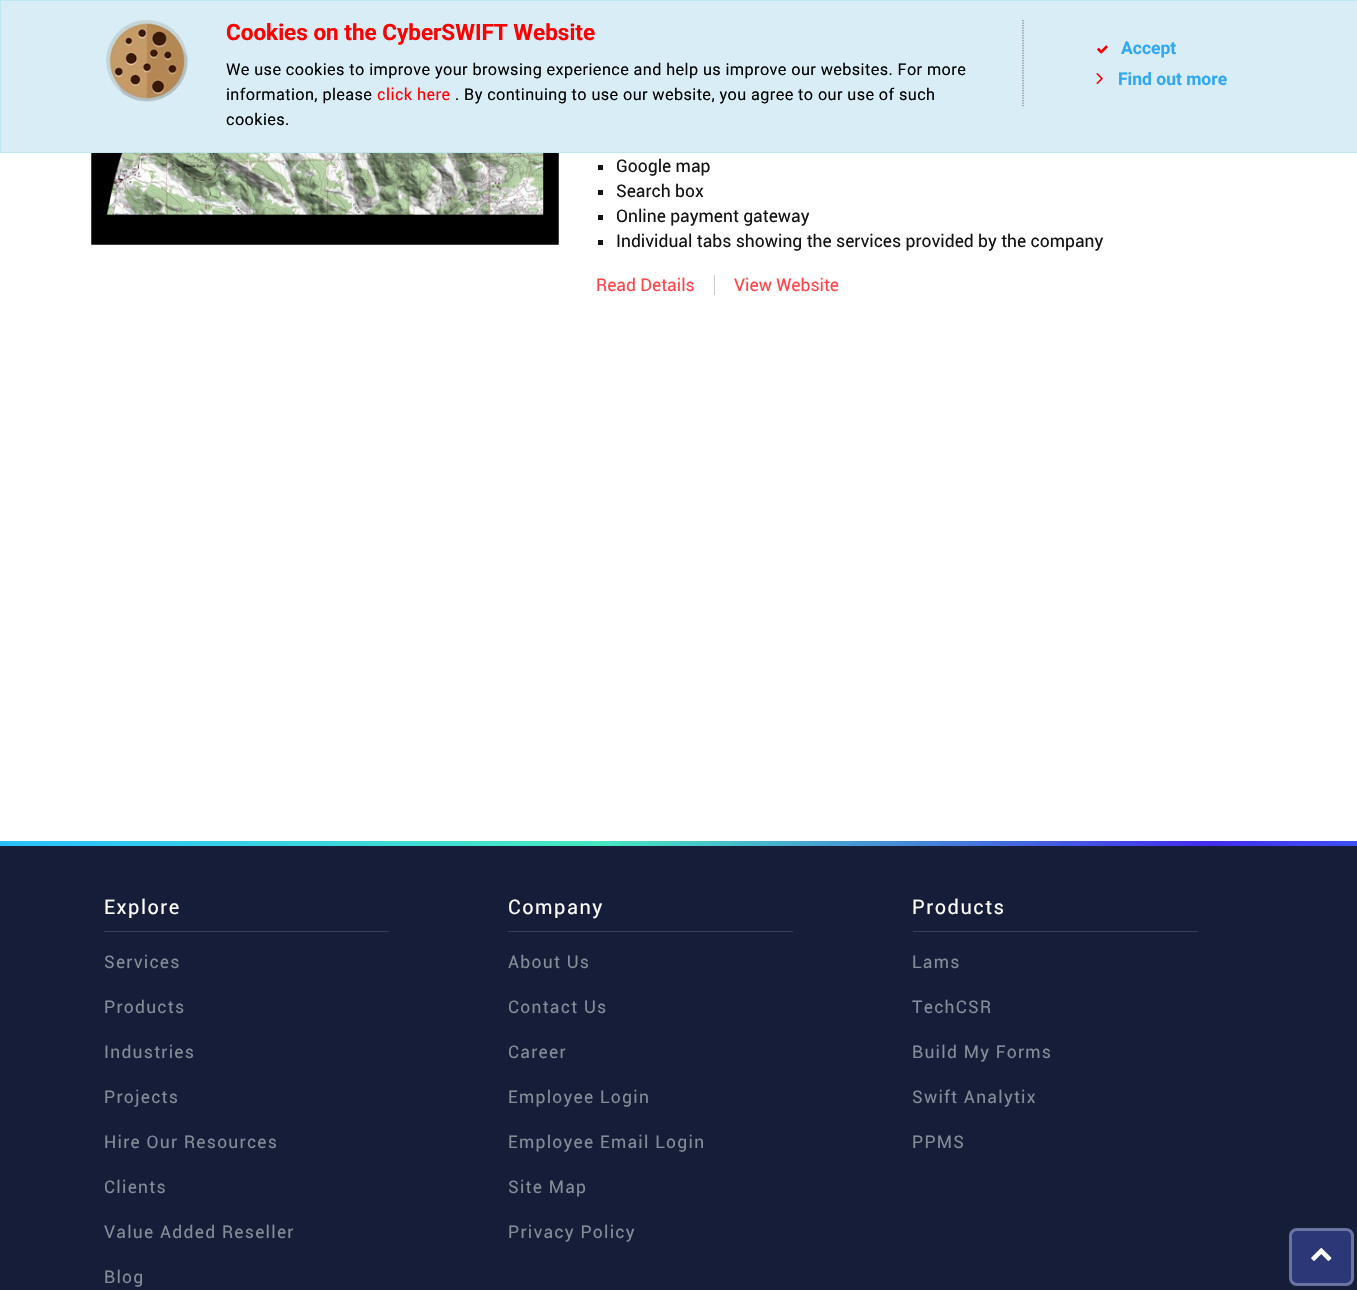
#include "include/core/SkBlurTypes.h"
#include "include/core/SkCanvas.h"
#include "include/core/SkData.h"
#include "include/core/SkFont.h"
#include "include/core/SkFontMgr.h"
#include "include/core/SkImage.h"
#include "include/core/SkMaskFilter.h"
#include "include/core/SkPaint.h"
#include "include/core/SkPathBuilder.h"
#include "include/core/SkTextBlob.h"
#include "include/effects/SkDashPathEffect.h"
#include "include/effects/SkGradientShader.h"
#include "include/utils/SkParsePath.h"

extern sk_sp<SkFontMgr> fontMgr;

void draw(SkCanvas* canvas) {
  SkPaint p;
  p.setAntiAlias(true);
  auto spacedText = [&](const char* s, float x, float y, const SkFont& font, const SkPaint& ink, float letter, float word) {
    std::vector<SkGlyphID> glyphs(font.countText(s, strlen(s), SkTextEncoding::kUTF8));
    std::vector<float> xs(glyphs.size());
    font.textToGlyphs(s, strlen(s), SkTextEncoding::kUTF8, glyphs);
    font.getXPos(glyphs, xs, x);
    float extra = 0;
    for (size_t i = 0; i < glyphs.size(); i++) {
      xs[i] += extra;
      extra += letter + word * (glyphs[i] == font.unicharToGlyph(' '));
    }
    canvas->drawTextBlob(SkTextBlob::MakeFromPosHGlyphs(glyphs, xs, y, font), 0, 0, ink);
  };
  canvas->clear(SK_ColorWHITE);
  p.setColor(SkColorSetRGB(217, 237, 247));
  canvas->drawRect(SkRect::MakeLTRB(0.5f, 0.5f, 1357.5f, 152.5f), p);
  p.setStyle(SkPaint::kStroke_Style);
  p.setStrokeWidth(1);
  p.setColor(SkColorSetRGB(188, 232, 241));
  canvas->drawRect(SkRect::MakeLTRB(0.5f, 0.5f, 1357.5f, 152.5f), p);
  canvas->drawImageRect(SkImages::DeferredFromEncodedData(SkData::MakeFromFileName("images/1.png")), SkRect::MakeLTRB(106, 20, 188, 102), SkSamplingOptions());
  p.setStrokeWidth(1.2f);
  p.setColor(SkColorSetRGB(122, 122, 122));
  p.setPathEffect(SkDashPathEffect::Make({{1.25f, 1.25f}}, 0));
  canvas->drawPath(SkPathBuilder().moveTo(1023, 20).lineTo(1023, 107.5f).detach(), p);
  p.setPathEffect(nullptr);
  canvas->drawImageRect(SkImages::DeferredFromEncodedData(SkData::MakeFromFileName("images/2.png")), SkRect::MakeLTRB(1097, 45, 1108, 54), SkSamplingOptions());
  canvas->drawImageRect(SkImages::DeferredFromEncodedData(SkData::MakeFromFileName("images/3.png")), SkRect::MakeLTRB(1096, 73, 1103, 85), SkSamplingOptions());
  canvas->drawImageRect(SkImages::DeferredFromEncodedData(SkData::MakeFromFileName("images/4.png")), SkRect::MakeLTRB(91, 153, 559, 245), SkSamplingOptions());
  p.setStyle(SkPaint::kFill_Style);
  p.setColor(SkColorSetRGB(20, 18, 18));
  canvas->drawRect(SkRect::MakeLTRB(598, 165, 603, 170), p);
  canvas->drawRect(SkRect::MakeLTRB(598, 190, 603, 195), p);
  canvas->drawRect(SkRect::MakeLTRB(598, 215, 603, 220), p);
  canvas->drawRect(SkRect::MakeLTRB(598, 240, 603, 245), p);
  p.setColor(SkColorSetRGB(204, 204, 204));
  canvas->drawRect(SkRect::MakeLTRB(714, 275, 715, 295), p);
  p.setColor(SkColorSetRGB(22, 29, 57));
  canvas->drawRect(SkRect::MakeLTRB(0, 846, 1357, 1290), p);
  {
    const SkColor colors[] = {SkColorSetRGB(41, 191, 255), SkColorSetRGB(71, 233, 192), SkColorSetRGB(67, 44, 238), SkColorSetRGB(41, 191, 255)};
    const float stops[] = {0, 0.33f, 0.67f, 1};
    const SkPoint ends[] = {{0, 844}, {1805, 844}};
    p.setShader(SkGradientShader::MakeLinear(ends, colors, stops, 4, SkTileMode::kClamp));
    p.setAlpha(255);
  }
  canvas->drawRect(SkRect::MakeLTRB(0, 841, 1357, 846), p);
  p.setShader(nullptr);
  p.setColor(SkColorSetRGB(56, 62, 85));
  canvas->drawRect(SkRect::MakeLTRB(104, 931, 389, 932), p);
  canvas->drawRect(SkRect::MakeLTRB(508, 931, 793, 932), p);
  canvas->drawRect(SkRect::MakeLTRB(913, 931, 1198, 932), p);
  p.setColor(SkColorSetRGB(43, 55, 119));
  canvas->drawRoundRect(SkRect::MakeLTRB(1289, 1228, 1354, 1286), 8, 8, p);
  p.setStyle(SkPaint::kStroke_Style);
  p.setStrokeWidth(3);
  p.setColor(SkColorSetARGB(77, 255, 255, 255));
  canvas->drawRoundRect(SkRect::MakeLTRB(1290.5f, 1229.5f, 1352.5f, 1284.5f), 6.5f, 6.5f, p);
  canvas->drawImageRect(SkImages::DeferredFromEncodedData(SkData::MakeFromFileName("images/5.png")), SkRect::MakeLTRB(1311, 1248, 1332, 1261), SkSamplingOptions());
  SkFont font1(fontMgr->matchFamilyStyle("Roboto", SkFontStyle::Bold()), 22.5f);
  font1.setSubpixel(true);
  p.setStyle(SkPaint::kFill_Style);
  p.setColor(SkColorSetRGB(255, 0, 0));
  canvas->drawString("Cookies on the CyberSWIFT Website", 226, 40, font1, p);
  SkFont font2(fontMgr->matchFamilyStyle("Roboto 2", SkFontStyle::Normal()), 16.25f);
  font2.setSubpixel(true);
  p.setColor(SK_ColorBLACK);
  spacedText("We use cookies to improve your browsing experience and help us improve our websites. For more", 226, 75, font2, p, 0.4f, 0);
  spacedText("information, please", 226, 100, font2, p, 0.4f, 0);
  SkFont font3(fontMgr->matchFamilyStyle("Roboto", SkFontStyle::Normal()), 16.25f);
  font3.setSubpixel(true);
  p.setColor(SkColorSetRGB(255, 0, 0));
  spacedText("click here", 377, 100, font3, p, 0.4f, 0);
  p.setColor(SK_ColorBLACK);
  spacedText(". By continuing to use our website, you agree to our use of such", 455, 100, font2, p, 0.4f, 0);
  spacedText("cookies.", 226, 125, font2, p, 0.4f, 0);
  SkFont font4(fontMgr->matchFamilyStyle("Roboto", SkFontStyle::Bold()), 17.5f);
  font4.setSubpixel(true);
  p.setColor(SkColorSetRGB(49, 168, 240));
  canvas->drawString("Accept", 1121, 54, font4, p);
  canvas->drawString("Find out more", 1118, 85, font4, p);
  SkFont font5(fontMgr->matchFamilyStyle("Roboto", SkFontStyle::Normal()), 17.5f);
  font5.setSubpixel(true);
  p.setColor(SkColorSetRGB(20, 18, 18));
  canvas->drawString("Google map", 616, 172, font5, p);
  canvas->drawString("Search box", 616, 197, font5, p);
  canvas->drawString("Online payment gateway", 616, 222, font5, p);
  canvas->drawString("Individual tabs showing the services provided by the company", 616, 247, font5, p);
  p.setColor(SkColorSetRGB(255, 68, 74));
  canvas->drawString("Read Details", 596, 291, font5, p);
  canvas->drawString("View Website", 734, 291, font5, p);
  SkFont font6(fontMgr->matchFamilyStyle("Roboto", SkFontStyle::Normal()), 20);
  font6.setSubpixel(true);
  p.setColor(SK_ColorWHITE);
  spacedText("Explore", 104, 914, font6, p, 1.5f, 0);
  p.setColor(SkColorSetRGB(134, 139, 152));
  spacedText("Services", 104, 968, font5, p, 1.25f, 0);
  spacedText("Products", 104, 1013, font5, p, 1.25f, 0);
  spacedText("Industries", 104, 1058, font5, p, 1.25f, 0);
  spacedText("Projects", 104, 1103, font5, p, 1.25f, 0);
  spacedText("Hire Our Resources", 104, 1148, font5, p, 1.25f, 0);
  spacedText("Clients", 104, 1193, font5, p, 1.25f, 0);
  spacedText("Value Added Reseller", 104, 1238, font5, p, 1.25f, 0);
  spacedText("Blog", 104, 1283, font5, p, 1.25f, 0);
  p.setColor(SK_ColorWHITE);
  spacedText("Company", 508, 914, font6, p, 1.5f, 0);
  p.setColor(SkColorSetRGB(134, 139, 152));
  spacedText("About Us", 508, 968, font5, p, 1.25f, 0);
  spacedText("Contact Us", 508, 1013, font5, p, 1.25f, 0);
  spacedText("Career", 508, 1058, font5, p, 1.25f, 0);
  spacedText("Employee Login", 508, 1103, font5, p, 1.25f, 0);
  spacedText("Employee Email Login", 508, 1148, font5, p, 1.25f, 0);
  spacedText("Site Map", 508, 1193, font5, p, 1.25f, 0);
  spacedText("Privacy Policy", 508, 1238, font5, p, 1.25f, 0);
  p.setColor(SK_ColorWHITE);
  spacedText("Products", 912, 914, font6, p, 1.5f, 0);
  p.setColor(SkColorSetRGB(134, 139, 152));
  spacedText("Lams", 912, 968, font5, p, 1.25f, 0);
  spacedText("TechCSR", 912, 1013, font5, p, 1.25f, 0);
  spacedText("Build My Forms", 912, 1058, font5, p, 1.25f, 0);
  spacedText("Swift Analytix", 912, 1103, font5, p, 1.25f, 0);
  spacedText("PPMS", 912, 1148, font5, p, 1.25f, 0);
}
